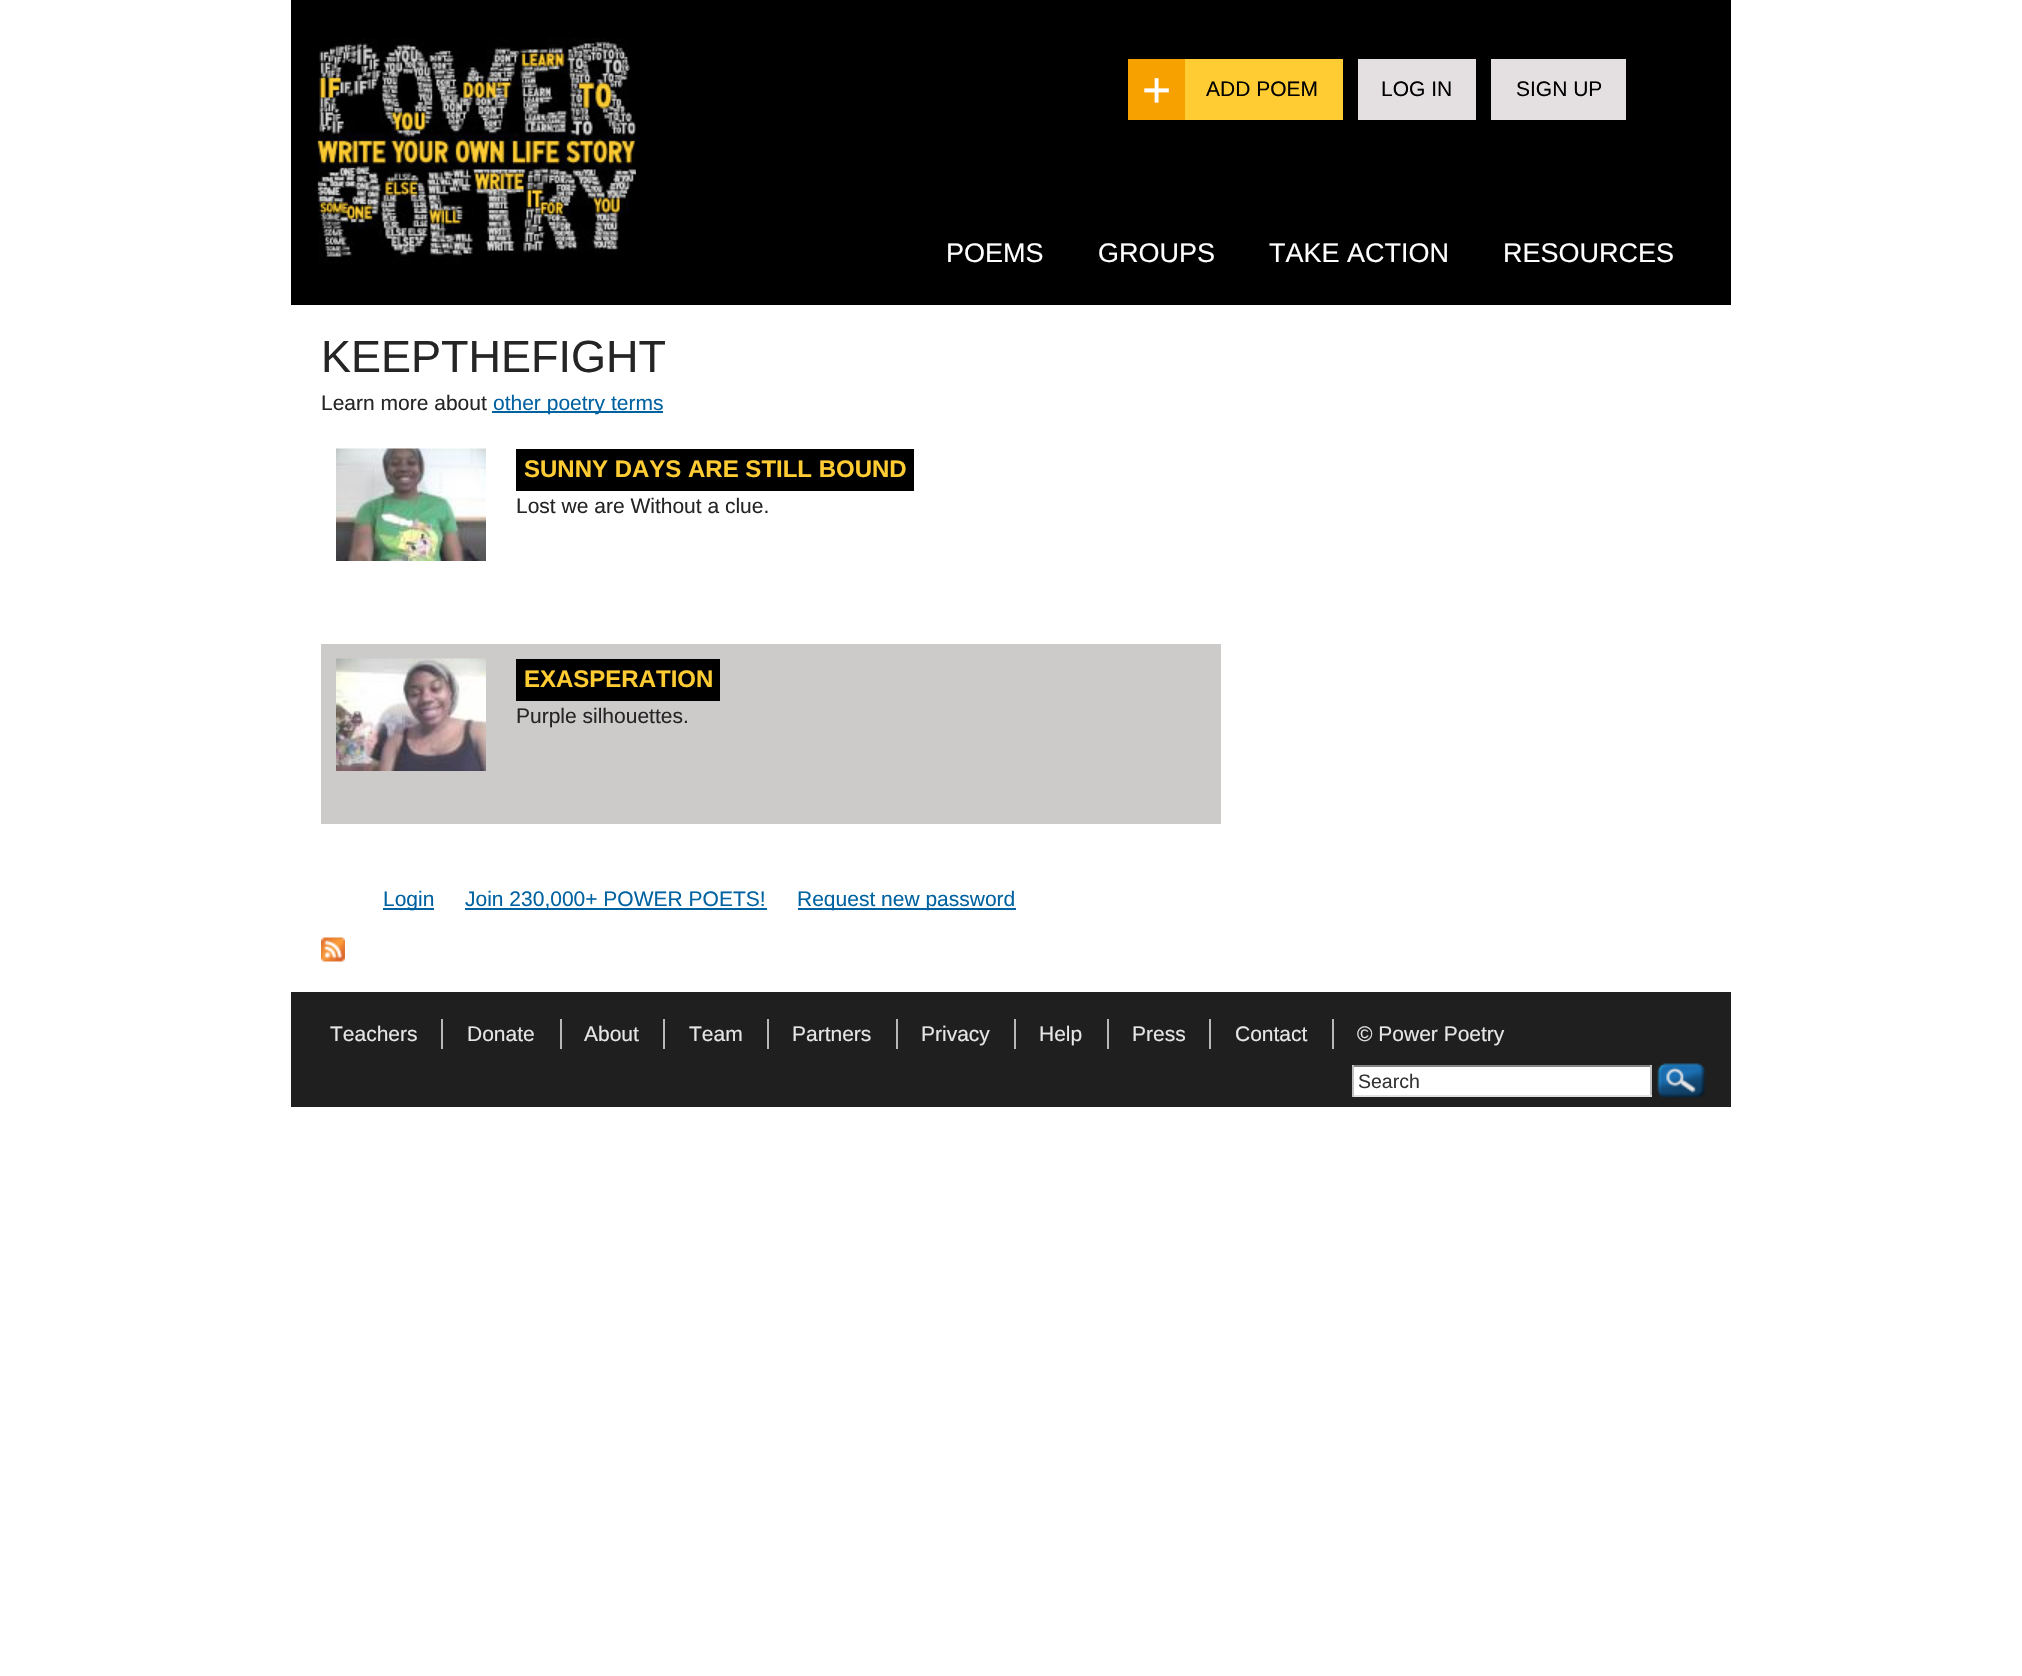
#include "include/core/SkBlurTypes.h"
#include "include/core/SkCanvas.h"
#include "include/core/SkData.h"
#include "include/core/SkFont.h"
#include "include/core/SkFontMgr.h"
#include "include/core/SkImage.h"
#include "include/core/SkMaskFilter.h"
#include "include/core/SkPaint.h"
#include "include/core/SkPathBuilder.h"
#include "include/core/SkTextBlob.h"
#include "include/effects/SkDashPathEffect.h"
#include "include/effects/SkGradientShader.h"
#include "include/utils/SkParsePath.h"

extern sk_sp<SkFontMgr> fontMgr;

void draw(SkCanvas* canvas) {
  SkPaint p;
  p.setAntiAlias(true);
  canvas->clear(SK_ColorWHITE);
  p.setColor(SK_ColorBLACK);
  canvas->drawRect(SkRect::MakeLTRB(291, 0, 1731, 305), p);
  canvas->drawImageRect(SkImages::DeferredFromEncodedData(SkData::MakeFromFileName("images/1.png")), SkRect::MakeLTRB(317, 38, 636, 265), SkSamplingOptions());
  p.setColor(SkColorSetRGB(255, 204, 51));
  canvas->drawRect(SkRect::MakeLTRB(1185, 59, 1343, 120), p);
  p.setColor(SkColorSetRGB(247, 161, 0));
  canvas->drawRect(SkRect::MakeLTRB(1128, 59, 1185, 120), p);
  p.setColor(SkColorSetRGB(228, 224, 225));
  canvas->drawRect(SkRect::MakeLTRB(1358, 59, 1476, 120), p);
  canvas->drawRect(SkRect::MakeLTRB(1491, 59, 1626, 120), p);
  p.setColor(SkColorSetRGB(0, 98, 160));
  canvas->drawRect(SkRect::MakeLTRB(492, 411, 663, 413), p);
  canvas->drawImageRect(SkImages::DeferredFromEncodedData(SkData::MakeFromFileName("images/2.png")), SkRect::MakeLTRB(336, 448, 486, 561), SkSamplingOptions());
  p.setColor(SK_ColorBLACK);
  canvas->drawRect(SkRect::MakeLTRB(516, 449, 914, 491), p);
  p.setColor(SkColorSetRGB(205, 202, 202));
  canvas->drawRect(SkRect::MakeLTRB(321, 644, 1221, 824), p);
  canvas->drawImageRect(SkImages::DeferredFromEncodedData(SkData::MakeFromFileName("images/3.png")), SkRect::MakeLTRB(336, 658, 486, 771), SkSamplingOptions());
  p.setColor(SK_ColorBLACK);
  canvas->drawRect(SkRect::MakeLTRB(516, 659, 720, 701), p);
  p.setColor(SkColorSetRGB(0, 98, 160));
  canvas->drawRect(SkRect::MakeLTRB(383, 908, 434, 910), p);
  canvas->drawRect(SkRect::MakeLTRB(465, 908, 767, 910), p);
  canvas->drawRect(SkRect::MakeLTRB(798, 908, 1016, 910), p);
  canvas->drawImageRect(SkImages::DeferredFromEncodedData(SkData::MakeFromFileName("images/4.png")), SkRect::MakeLTRB(321, 937, 345, 962), SkSamplingOptions());
  p.setColor(SkColorSetRGB(31, 31, 32));
  canvas->drawRect(SkRect::MakeLTRB(291, 992, 1731, 1107), p);
  p.setColor(SkColorSetRGB(184, 182, 183));
  canvas->drawRect(SkRect::MakeLTRB(441, 1019, 443, 1049), p);
  canvas->drawRect(SkRect::MakeLTRB(560, 1019, 562, 1049), p);
  canvas->drawRect(SkRect::MakeLTRB(663, 1019, 665, 1049), p);
  canvas->drawRect(SkRect::MakeLTRB(767, 1019, 769, 1049), p);
  canvas->drawRect(SkRect::MakeLTRB(896, 1019, 898, 1049), p);
  canvas->drawRect(SkRect::MakeLTRB(1014, 1019, 1016, 1049), p);
  canvas->drawRect(SkRect::MakeLTRB(1107, 1019, 1109, 1049), p);
  canvas->drawRect(SkRect::MakeLTRB(1209, 1019, 1211, 1049), p);
  canvas->drawRect(SkRect::MakeLTRB(1332, 1019, 1334, 1049), p);
  p.setColor(SK_ColorWHITE);
  canvas->drawRect(SkRect::MakeLTRB(1354, 1067, 1650, 1095), p);
  p.setColor(SkColorSetRGB(132, 132, 132));
  canvas->drawRect(SkRect::MakeLTRB(1352, 1065, 1652, 1067), p);
  p.setColor(SkColorSetRGB(193, 193, 193));
  canvas->drawRect(SkRect::MakeLTRB(1650, 1065, 1652, 1097), p);
  p.setColor(SkColorSetRGB(225, 225, 225));
  canvas->drawRect(SkRect::MakeLTRB(1352, 1095, 1652, 1097), p);
  p.setColor(SkColorSetRGB(193, 193, 193));
  canvas->drawRect(SkRect::MakeLTRB(1352, 1065, 1354, 1097), p);
  canvas->drawImageRect(SkImages::DeferredFromEncodedData(SkData::MakeFromFileName("images/5.png")), SkRect::MakeLTRB(1657, 1063, 1706, 1098), SkSamplingOptions());
  SkFont font1(fontMgr->matchFamilyStyle("Liberation Sans", SkFontStyle::Normal()), 50);
  font1.setSubpixel(true);
  p.setColor(SK_ColorWHITE);
  canvas->drawString("+", 1142, 107, font1, p);
  SkFont font2(fontMgr->matchFamilyStyle("Liberation Sans", SkFontStyle::Normal()), 21);
  font2.setSubpixel(true);
  p.setColor(SK_ColorBLACK);
  canvas->drawString("ADD POEM", 1206, 96, font2, p);
  canvas->drawString("LOG IN", 1381, 96, font2, p);
  canvas->drawString("SIGN UP", 1516, 96, font2, p);
  SkFont font3(fontMgr->matchFamilyStyle("Liberation Sans", SkFontStyle::Normal()), 27);
  font3.setSubpixel(true);
  p.setColor(SK_ColorWHITE);
  canvas->drawString("POEMS", 946, 262, font3, p);
  canvas->drawString("GROUPS", 1098, 262, font3, p);
  canvas->drawString("TAKE ACTION", 1269, 262, font3, p);
  canvas->drawString("RESOURCES", 1503, 262, font3, p);
  SkFont font4(fontMgr->matchFamilyStyle("Liberation Sans", SkFontStyle::Normal()), 45);
  font4.setSubpixel(true);
  p.setColor(SkColorSetRGB(37, 37, 37));
  canvas->drawString("KEEPTHEFIGHT", 321, 372, font4, p);
  canvas->drawString("Learn more about", 321, 410, font2, p);
  p.setColor(SkColorSetRGB(0, 98, 160));
  canvas->drawString("other poetry terms", 493, 410, font2, p);
  SkFont font5(fontMgr->matchFamilyStyle("Liberation Sans", SkFontStyle::Bold()), 24);
  font5.setSubpixel(true);
  p.setColor(SkColorSetRGB(255, 204, 51));
  canvas->drawString("SUNNY DAYS ARE STILL BOUND", 524, 477, font5, p);
  p.setColor(SkColorSetRGB(37, 37, 37));
  canvas->drawString("Lost we are Without a clue.", 516, 513, font2, p);
  p.setColor(SkColorSetRGB(255, 204, 51));
  canvas->drawString("EXASPERATION", 524, 687, font5, p);
  p.setColor(SkColorSetRGB(37, 37, 37));
  canvas->drawString("Purple silhouettes.", 516, 723, font2, p);
  p.setColor(SkColorSetRGB(0, 98, 160));
  canvas->drawString("Login", 383, 906, font2, p);
  canvas->drawString("Join 230,000+ POWER POETS!", 465, 906, font2, p);
  canvas->drawString("Request new password", 797, 906, font2, p);
  p.setColor(SkColorSetRGB(231, 229, 229));
  canvas->drawString("Teachers", 330, 1041, font2, p);
  canvas->drawString("Donate", 467, 1041, font2, p);
  canvas->drawString("About", 584, 1041, font2, p);
  canvas->drawString("Team", 689, 1041, font2, p);
  canvas->drawString("Partners", 792, 1041, font2, p);
  canvas->drawString("Privacy", 921, 1041, font2, p);
  canvas->drawString("Help", 1039, 1041, font2, p);
  canvas->drawString("Press", 1132, 1041, font2, p);
  canvas->drawString("Contact", 1235, 1041, font2, p);
  canvas->drawString("© Power Poetry", 1357, 1041, font2, p);
  SkFont font6(fontMgr->matchFamilyStyle("Liberation Sans", SkFontStyle::Normal()), 19.5f);
  font6.setSubpixel(true);
  p.setColor(SkColorSetRGB(51, 51, 51));
  canvas->drawString("Search", 1358, 1088, font6, p);
}
